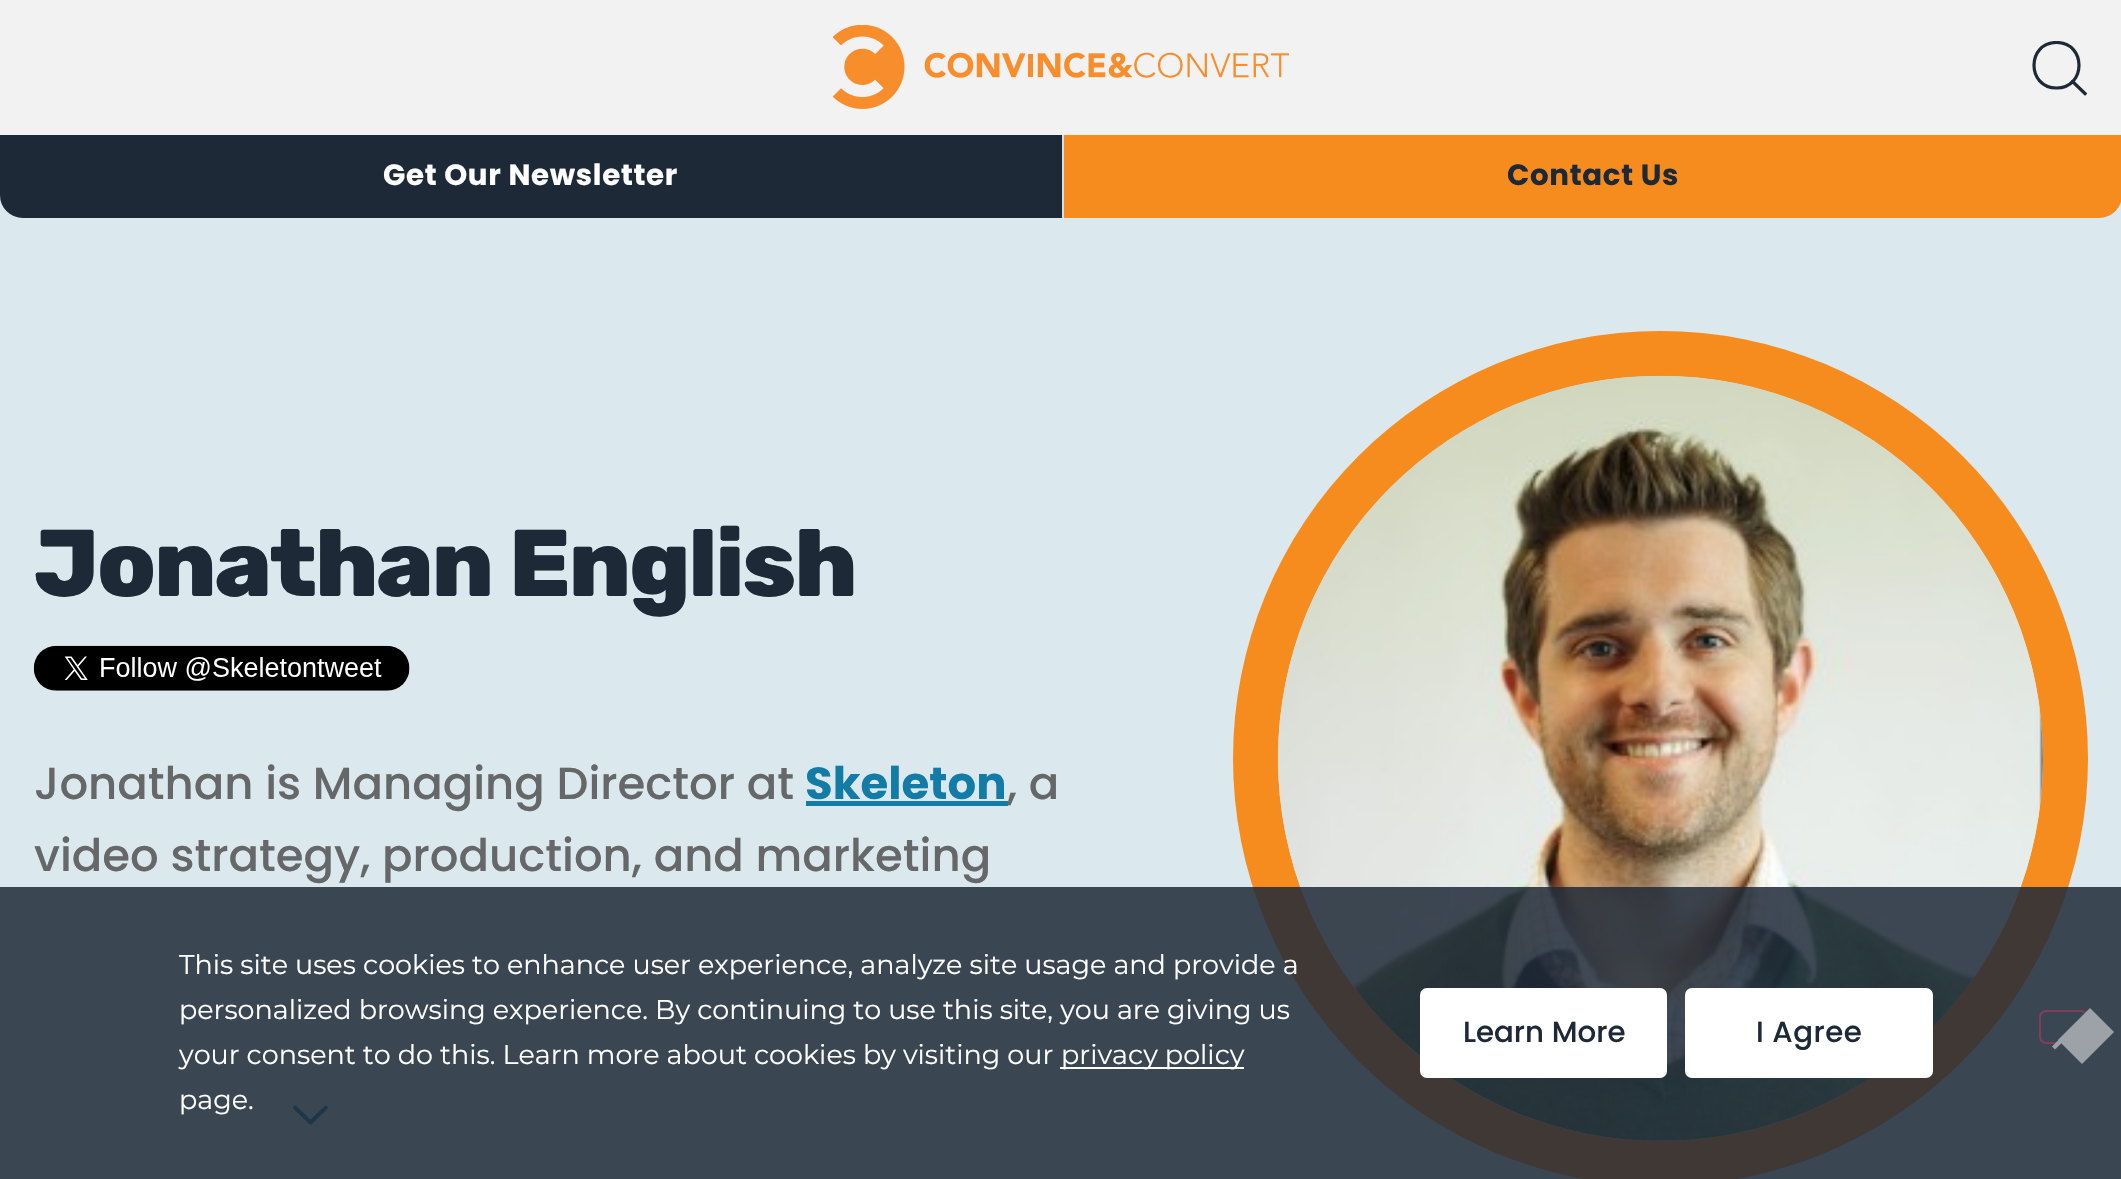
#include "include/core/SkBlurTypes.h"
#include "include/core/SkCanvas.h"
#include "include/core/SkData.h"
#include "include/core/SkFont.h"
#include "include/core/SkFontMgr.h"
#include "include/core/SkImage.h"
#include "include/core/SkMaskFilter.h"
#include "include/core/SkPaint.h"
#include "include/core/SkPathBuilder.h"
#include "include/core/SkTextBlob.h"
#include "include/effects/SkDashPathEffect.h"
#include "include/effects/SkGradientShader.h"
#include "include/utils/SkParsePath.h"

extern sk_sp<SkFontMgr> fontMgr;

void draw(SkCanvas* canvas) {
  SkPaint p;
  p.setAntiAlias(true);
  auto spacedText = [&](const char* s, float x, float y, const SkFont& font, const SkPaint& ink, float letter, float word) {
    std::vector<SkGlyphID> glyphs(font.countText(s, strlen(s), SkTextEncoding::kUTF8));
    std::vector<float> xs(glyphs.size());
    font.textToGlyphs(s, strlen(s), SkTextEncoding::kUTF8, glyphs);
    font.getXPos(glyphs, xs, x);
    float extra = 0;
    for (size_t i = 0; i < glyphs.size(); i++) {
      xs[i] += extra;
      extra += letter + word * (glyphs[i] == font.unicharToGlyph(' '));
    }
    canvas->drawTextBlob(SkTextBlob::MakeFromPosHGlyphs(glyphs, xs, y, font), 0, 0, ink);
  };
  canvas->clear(SkColorSetRGB(219, 233, 238));
  p.setColor(SkColorSetRGB(242, 242, 243));
  canvas->drawRect(SkRect::MakeLTRB(0, 0, 2121, 135), p);
  canvas->drawImageRect(SkImages::DeferredFromEncodedData(SkData::MakeFromFileName("images/1.png")), SkRect::MakeLTRB(833, 25, 1289, 109), SkSamplingOptions());
  canvas->save();
  canvas->clipRect(SkRect::MakeLTRB(2032, 41, 2088, 97));
  p.setStyle(SkPaint::kStroke_Style);
  p.setStrokeWidth(3.2f);
  p.setStrokeCap(SkPaint::kRound_Cap);
  p.setStrokeJoin(SkPaint::kRound_Join);
  p.setColor(SkColorSetRGB(30, 41, 55));
  canvas->drawPath(SkPathBuilder().moveTo(2056.5f, 88).cubicTo(2086.5f, 88, 2086.5f, 42.5f, 2056.5f, 42.5f).cubicTo(2026.5f, 42.5f, 2026.5f, 88, 2056.5f, 88).close().detach(), p);
  canvas->restore();
  canvas->save();
  canvas->clipPath(SkPathBuilder().moveTo(2039, 41).lineTo(2081, 41).cubicTo(2085, 41, 2088, 44, 2088, 48).lineTo(2088, 90).cubicTo(2088, 94, 2085, 97, 2081, 97).lineTo(2039, 97).cubicTo(2035, 97, 2032, 94, 2032, 90).lineTo(2032, 48).cubicTo(2032, 44, 2035, 41, 2039, 41).close().detach(), true);
  canvas->drawPath(SkPathBuilder().moveTo(2072.5f, 81.5f).lineTo(2086, 94.5f).detach(), p);
  canvas->restore();
  p.setStyle(SkPaint::kFill_Style);
  canvas->drawPath(SkPathBuilder().moveTo(2.5f, 137.5f).lineTo(1059.5f, 137.5f).lineTo(1059.5f, 215.5f).lineTo(23, 215.5f).cubicTo(11.5f, 215.5f, 2.5f, 206.5f, 2.5f, 195).close().detach(), p);
  p.setStyle(SkPaint::kStroke_Style);
  p.setStrokeWidth(5);
  p.setStrokeCap(SkPaint::kButt_Cap);
  p.setStrokeJoin(SkPaint::kMiter_Join);
  canvas->drawPath(SkPathBuilder().moveTo(2.5f, 137.5f).lineTo(1059.5f, 137.5f).lineTo(1059.5f, 215.5f).lineTo(23, 215.5f).cubicTo(11.5f, 215.5f, 2.5f, 206.5f, 2.5f, 195).close().detach(), p);
  p.setStyle(SkPaint::kFill_Style);
  p.setColor(SkColorSetRGB(210, 224, 229));
  canvas->drawRect(SkRect::MakeLTRB(1062, 135, 1064, 218), p);
  p.setColor(SkColorSetRGB(246, 140, 30));
  canvas->drawPath(SkPathBuilder().moveTo(1066.5f, 137.5f).lineTo(2119.5f, 137.5f).lineTo(2119.5f, 195).cubicTo(2119.5f, 206.5f, 2110.5f, 215.5f, 2099, 215.5f).lineTo(1066.5f, 215.5f).close().detach(), p);
  p.setStyle(SkPaint::kStroke_Style);
  canvas->drawPath(SkPathBuilder().moveTo(1066.5f, 137.5f).lineTo(2119.5f, 137.5f).lineTo(2119.5f, 195).cubicTo(2119.5f, 206.5f, 2110.5f, 215.5f, 2099, 215.5f).lineTo(1066.5f, 215.5f).close().detach(), p);
  canvas->drawImageRect(SkImages::DeferredFromEncodedData(SkData::MakeFromFileName("images/2.png")), SkRect::MakeLTRB(33, 645, 410, 691), SkSamplingOptions());
  p.setStyle(SkPaint::kFill_Style);
  p.setColor(SkColorSetRGB(19, 124, 166));
  canvas->drawRect(SkRect::MakeLTRB(806, 801, 1008, 806), p);
  p.setStyle(SkPaint::kStroke_Style);
  p.setStrokeWidth(3.9f);
  p.setStrokeCap(SkPaint::kRound_Cap);
  p.setStrokeJoin(SkPaint::kRound_Join);
  canvas->drawPath(SkPathBuilder().moveTo(295, 1107.5f).lineTo(310.5f, 1122.5f).lineTo(326, 1107.5f).detach(), p);
  p.setStyle(SkPaint::kFill_Style);
  p.setColor(SkColorSetRGB(246, 140, 30));
  canvas->drawCircle(1660.5f, 758.5f, 427.5f, p);
  p.setColor(SkColorSetRGB(219, 233, 238));
  canvas->drawCircle(1660.5f, 758.5f, 382.5f, p);
  canvas->drawImageRect(SkImages::DeferredFromEncodedData(SkData::MakeFromFileName("images/3.png")), SkRect::MakeLTRB(1278, 375, 2043, 1141), SkSamplingOptions());
  p.setColor(SkColorSetARGB(217, 30, 41, 55));
  canvas->drawRect(SkRect::MakeLTRB(0, 887, 2121, 1179), p);
  p.setColor(SK_ColorWHITE);
  canvas->drawRect(SkRect::MakeLTRB(1060, 1067, 1244, 1069), p);
  canvas->drawRoundRect(SkRect::MakeLTRB(1420, 988, 1667, 1078), 7, 7, p);
  canvas->drawRoundRect(SkRect::MakeLTRB(1685, 988, 1933, 1078), 7, 7, p);
  p.setStyle(SkPaint::kStroke_Style);
  p.setStrokeWidth(2);
  p.setStrokeCap(SkPaint::kButt_Cap);
  p.setStrokeJoin(SkPaint::kMiter_Join);
  p.setColor(SkColorSetRGB(131, 60, 92));
  canvas->drawRoundRect(SkRect::MakeLTRB(2040, 1011, 2087, 1043), 6, 6, p);
  p.setStyle(SkPaint::kFill_Style);
  p.setColor(SkColorSetRGB(157, 162, 169));
  canvas->drawPath(SkPathBuilder().moveTo(2076, 1022.5f).lineTo(2079, 1026).lineTo(2055, 1049.5f).lineTo(2052, 1046.5f).close().detach(), p);
  canvas->drawPath(SkPathBuilder().moveTo(2058, 1040).lineTo(2090, 1008).lineTo(2114, 1032).lineTo(2082, 1064).close().detach(), p);
  SkFont font1(fontMgr->matchFamilyStyle("Poppins", SkFontStyle::Bold()), 29.25f);
  font1.setSubpixel(true);
  p.setColor(SK_ColorWHITE);
  spacedText("Get Our Newsletter", 383, 185, font1, p, 0.7f, 0);
  p.setColor(SkColorSetRGB(30, 41, 55));
  spacedText("Contact Us", 1507, 185, font1, p, 0.7f, 0);
  SkFont font2(fontMgr->matchFamilyStyle("Rubik", SkFontStyle(800, SkFontStyle::kNormal_Width, SkFontStyle::kUpright_Slant)), 94.5f);
  font2.setSubpixel(true);
  spacedText("Jonathan English", 34, 596, font2, p, -1.9f, 0);
  SkFont font3(fontMgr->matchFamilyStyle("Poppins", SkFontStyle(500, SkFontStyle::kNormal_Width, SkFontStyle::kUpright_Slant)), 45);
  font3.setSubpixel(true);
  p.setColor(SkColorSetRGB(101, 103, 104));
  canvas->drawString("Jonathan is Managing Director at", 34, 799, font3, p);
  SkFont font4(fontMgr->matchFamilyStyle("Poppins", SkFontStyle::Bold()), 45);
  font4.setSubpixel(true);
  p.setColor(SkColorSetRGB(19, 124, 166));
  canvas->drawString("Skeleton", 805, 799, font4, p);
  p.setColor(SkColorSetRGB(101, 103, 104));
  canvas->drawString(", a", 1007, 799, font3, p);
  canvas->drawString("video strategy, production, and marketing", 34, 871, font3, p);
  SkFont font5(fontMgr->matchFamilyStyle("Montserrat", SkFontStyle::Normal()), 27);
  font5.setSubpixel(true);
  p.setColor(SK_ColorWHITE);
  canvas->drawString("This site uses cookies to enhance user experience, analyze site usage and provide a", 179, 974, font5, p);
  canvas->drawString("personalized browsing experience. By continuing to use this site, you are giving us", 179, 1019, font5, p);
  canvas->drawString("your consent to do this. Learn more about cookies by visiting our", 179, 1064, font5, p);
  canvas->drawString("privacy policy", 1061, 1064, font5, p);
  canvas->drawString("page.", 179, 1109, font5, p);
  SkFont font6(fontMgr->matchFamilyStyle("Poppins", SkFontStyle(500, SkFontStyle::kNormal_Width, SkFontStyle::kUpright_Slant)), 29.25f);
  font6.setSubpixel(true);
  p.setColor(SkColorSetRGB(30, 41, 55));
  canvas->drawString("Learn More", 1463, 1042, font6, p);
  spacedText("I Agree", 1756, 1042, font6, p, 0.5f, 0);
}
